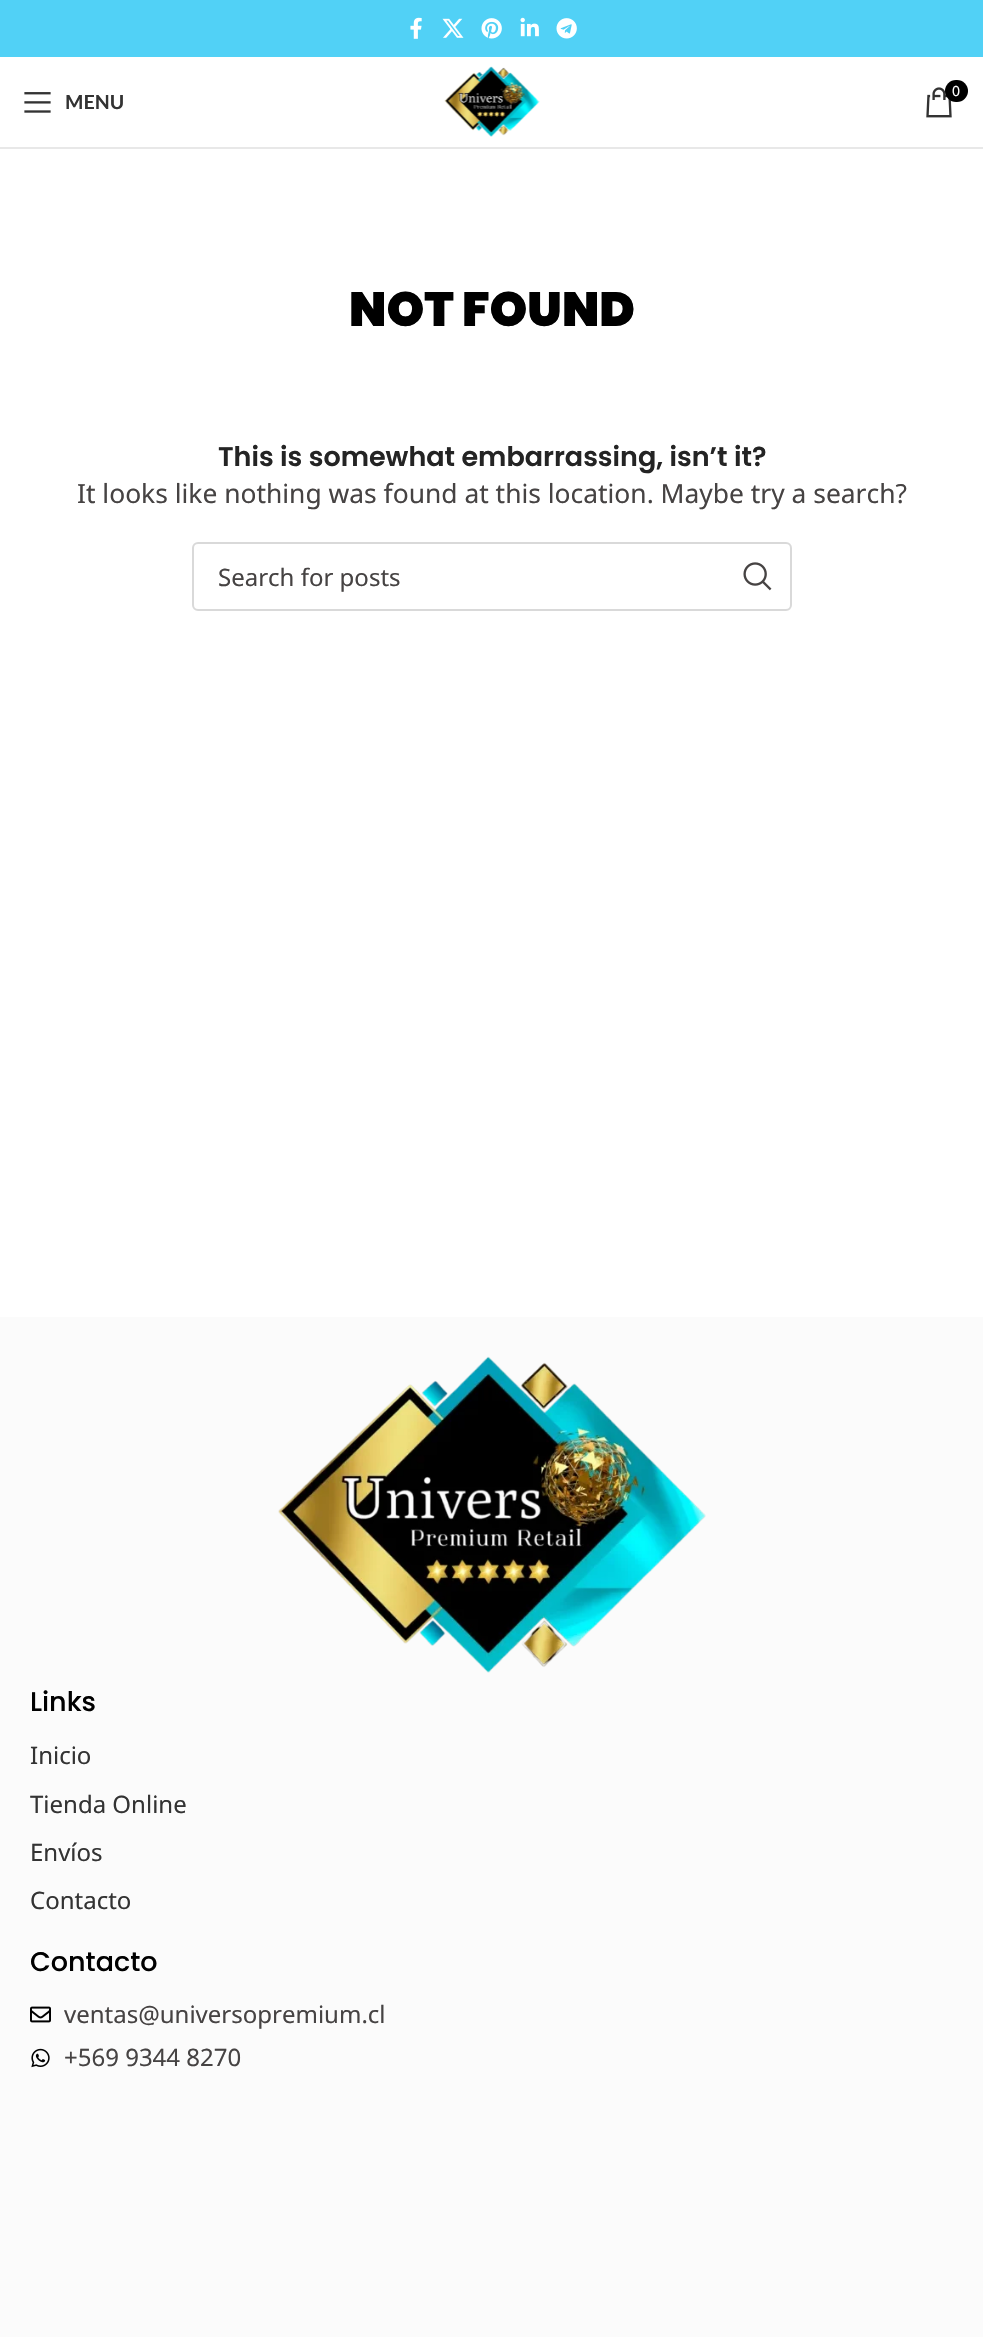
#include "include/core/SkBlurTypes.h"
#include "include/core/SkCanvas.h"
#include "include/core/SkData.h"
#include "include/core/SkFont.h"
#include "include/core/SkFontMgr.h"
#include "include/core/SkImage.h"
#include "include/core/SkMaskFilter.h"
#include "include/core/SkPaint.h"
#include "include/core/SkPathBuilder.h"
#include "include/core/SkTextBlob.h"
#include "include/effects/SkDashPathEffect.h"
#include "include/effects/SkGradientShader.h"
#include "include/utils/SkParsePath.h"

extern sk_sp<SkFontMgr> fontMgr;

void draw(SkCanvas* canvas) {
  SkPaint p;
  p.setAntiAlias(true);
  canvas->clear(SK_ColorWHITE);
  p.setColor(SkColorSetRGB(81, 209, 246));
  canvas->drawRect(SkRect::MakeLTRB(0, 0, 983, 57), p);
  canvas->drawImageRect(SkImages::DeferredFromEncodedData(SkData::MakeFromFileName("images/1.png")), SkRect::MakeLTRB(410, 17, 422, 39), SkSamplingOptions());
  canvas->drawImageRect(SkImages::DeferredFromEncodedData(SkData::MakeFromFileName("images/2.png")), SkRect::MakeLTRB(442, 18, 464, 38), SkSamplingOptions());
  canvas->drawImageRect(SkImages::DeferredFromEncodedData(SkData::MakeFromFileName("images/3.png")), SkRect::MakeLTRB(481, 18, 502, 39), SkSamplingOptions());
  canvas->drawImageRect(SkImages::DeferredFromEncodedData(SkData::MakeFromFileName("images/4.png")), SkRect::MakeLTRB(520, 17, 539, 37), SkSamplingOptions());
  canvas->drawImageRect(SkImages::DeferredFromEncodedData(SkData::MakeFromFileName("images/5.png")), SkRect::MakeLTRB(556, 18, 577, 39), SkSamplingOptions());
  p.setColor(SkColorSetRGB(232, 232, 232));
  canvas->drawRect(SkRect::MakeLTRB(0, 147, 983, 149), p);
  canvas->drawImageRect(SkImages::DeferredFromEncodedData(SkData::MakeFromFileName("images/6.png")), SkRect::MakeLTRB(444, 66, 540, 137), SkSamplingOptions());
  canvas->drawImageRect(SkImages::DeferredFromEncodedData(SkData::MakeFromFileName("images/7.png")), SkRect::MakeLTRB(926, 87, 952, 118), SkSamplingOptions());
  p.setColor(SK_ColorBLACK);
  canvas->drawRoundRect(SkRect::MakeLTRB(945, 80, 968, 102), 11, 11, p);
  canvas->drawImageRect(SkImages::DeferredFromEncodedData(SkData::MakeFromFileName("images/8.png")), SkRect::MakeLTRB(24, 92, 51, 113), SkSamplingOptions());
  p.setStyle(SkPaint::kStroke_Style);
  p.setStrokeWidth(2);
  p.setColor(SkColorSetRGB(217, 217, 217));
  canvas->drawRoundRect(SkRect::MakeLTRB(193, 543, 791, 610), 5, 5, p);
  canvas->drawImageRect(SkImages::DeferredFromEncodedData(SkData::MakeFromFileName("images/9.png")), SkRect::MakeLTRB(743, 562, 772, 591), SkSamplingOptions());
  p.setStyle(SkPaint::kFill_Style);
  p.setColor(SkColorSetRGB(251, 251, 251));
  canvas->drawRect(SkRect::MakeLTRB(0, 1317, 983, 2337), p);
  canvas->drawImageRect(SkImages::DeferredFromEncodedData(SkData::MakeFromFileName("images/10.png")), SkRect::MakeLTRB(278, 1356, 706, 1673), SkSamplingOptions());
  canvas->drawImageRect(SkImages::DeferredFromEncodedData(SkData::MakeFromFileName("images/11.png")), SkRect::MakeLTRB(30, 2006, 51, 2023), SkSamplingOptions());
  canvas->drawImageRect(SkImages::DeferredFromEncodedData(SkData::MakeFromFileName("images/12.png")), SkRect::MakeLTRB(31, 2048, 50, 2068), SkSamplingOptions());
  SkFont font1(fontMgr->matchFamilyStyle("Noto Sans", SkFontStyle::Normal()), 14);
  font1.setSubpixel(true);
  p.setColor(SK_ColorWHITE);
  canvas->drawString("0", 952, 96, font1, p);
  SkFont font2(fontMgr->matchFamilyStyle("Lato", SkFontStyle::Bold()), 19.5f);
  font2.setSubpixel(true);
  p.setColor(SkColorSetRGB(51, 51, 51));
  canvas->drawString("MENU", 65, 109, font2, p);
  SkFont font3(fontMgr->matchFamilyStyle("Poppins", SkFontStyle(900, SkFontStyle::kNormal_Width, SkFontStyle::kUpright_Slant)), 48);
  font3.setSubpixel(true);
  p.setColor(SK_ColorBLACK);
  canvas->drawString("NOT FOUND", 349, 326, font3, p);
  SkFont font4(fontMgr->matchFamilyStyle("Poppins", SkFontStyle(600, SkFontStyle::kNormal_Width, SkFontStyle::kUpright_Slant)), 27);
  font4.setSubpixel(true);
  p.setColor(SkColorSetRGB(36, 36, 36));
  canvas->drawString("This is somewhat embarrassing, isn’t it?", 218, 466, font4, p);
  SkFont font5(fontMgr->matchFamilyStyle("Noto Sans", SkFontStyle::Normal()), 26.4f);
  font5.setSubpixel(true);
  p.setColor(SkColorSetRGB(70, 67, 67));
  canvas->drawString("It looks like nothing was found at this location. Maybe try a search?", 77, 503, font5, p);
  SkFont font6(fontMgr->matchFamilyStyle("Noto Sans", SkFontStyle::Normal()), 24);
  font6.setSubpixel(true);
  canvas->drawString("Search for posts", 218, 586, font6, p);
  SkFont font7(fontMgr->matchFamilyStyle("Poppins", SkFontStyle(500, SkFontStyle::kNormal_Width, SkFontStyle::kUpright_Slant)), 27);
  font7.setSubpixel(true);
  p.setColor(SK_ColorBLACK);
  canvas->drawString("Links", 30, 1711, font7, p);
  p.setColor(SkColorSetRGB(51, 51, 51));
  canvas->drawString("Inicio", 30, 1764, font6, p);
  canvas->drawString("Tienda Online", 30, 1813, font6, p);
  canvas->drawString("Envíos", 30, 1861, font6, p);
  canvas->drawString("Contacto", 30, 1909, font6, p);
  p.setColor(SK_ColorBLACK);
  canvas->drawString("Contacto", 30, 1971, font7, p);
  p.setColor(SkColorSetRGB(70, 67, 67));
  canvas->drawString("ventas@universopremium.cl", 64, 2023, font6, p);
  canvas->drawString("+569 9344 8270", 64, 2066, font6, p);
}
